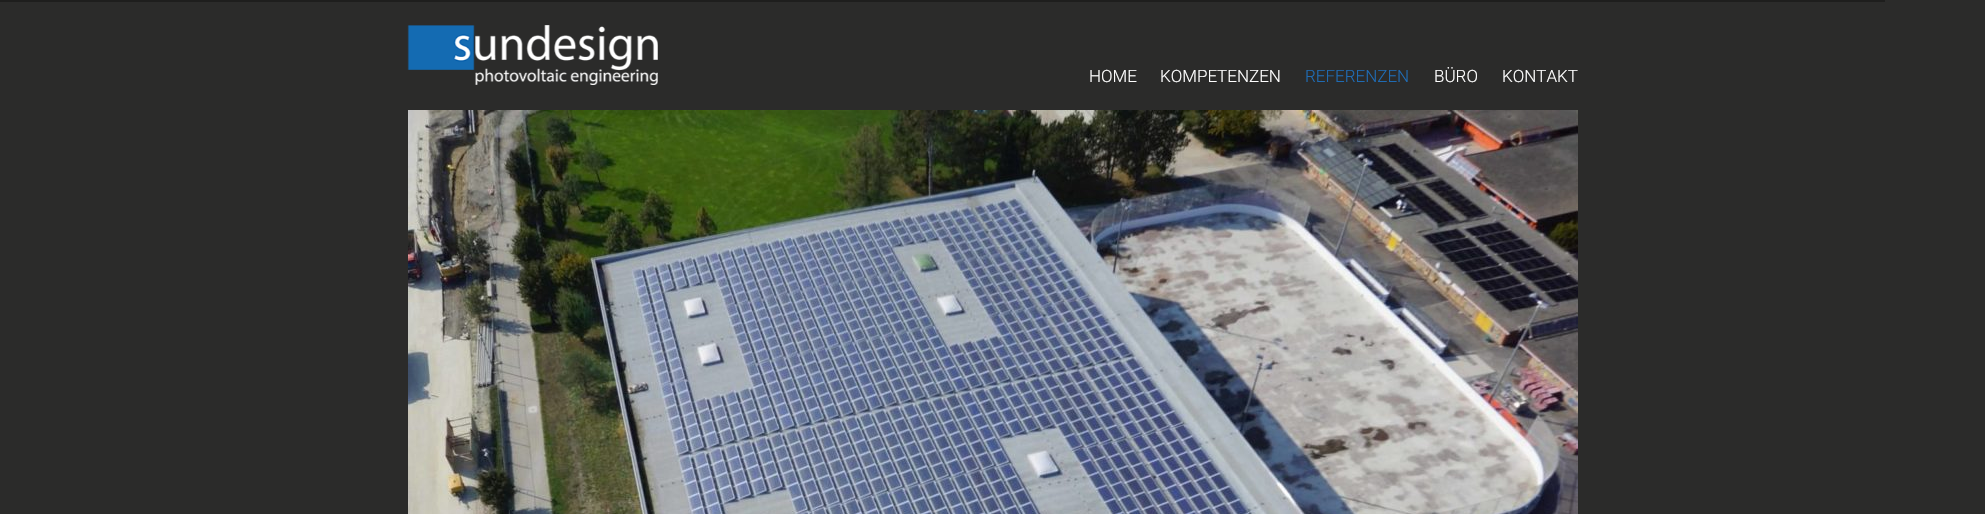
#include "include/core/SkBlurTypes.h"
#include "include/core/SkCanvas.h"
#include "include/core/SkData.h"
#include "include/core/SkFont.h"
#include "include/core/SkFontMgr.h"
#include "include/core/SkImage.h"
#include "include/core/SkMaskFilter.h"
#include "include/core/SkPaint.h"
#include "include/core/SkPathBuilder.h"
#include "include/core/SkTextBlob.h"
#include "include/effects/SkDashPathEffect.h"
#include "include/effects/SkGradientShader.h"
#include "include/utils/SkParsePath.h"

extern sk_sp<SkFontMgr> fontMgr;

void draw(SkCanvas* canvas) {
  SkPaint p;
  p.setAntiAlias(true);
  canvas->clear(SkColorSetRGB(43, 43, 42));
  p.setColor(SkColorSetRGB(30, 30, 29));
  canvas->drawRect(SkRect::MakeLTRB(0, 0, 1885, 2), p);
  canvas->drawImageRect(SkImages::DeferredFromEncodedData(SkData::MakeFromFileName("images/1.png")), SkRect::MakeLTRB(407, 25, 658, 85), SkSamplingOptions());
  canvas->drawImageRect(SkImages::DeferredFromEncodedData(SkData::MakeFromFileName("images/2.png")), SkRect::MakeLTRB(408, 110, 1578, 514), SkSamplingOptions());
  SkFont font1(fontMgr->matchFamilyStyle("Roboto", SkFontStyle(300, SkFontStyle::kNormal_Width, SkFontStyle::kUpright_Slant)), 17);
  font1.setSubpixel(true);
  p.setColor(SK_ColorWHITE);
  canvas->drawString("HOME", 1089, 82, font1, p);
  canvas->drawString("KOMPETENZEN", 1160, 82, font1, p);
  p.setColor(SkColorSetRGB(31, 107, 179));
  canvas->drawString("REFERENZEN", 1305, 82, font1, p);
  p.setColor(SK_ColorWHITE);
  canvas->drawString("BÜRO", 1434, 82, font1, p);
  canvas->drawString("KONTAKT", 1502, 82, font1, p);
}
